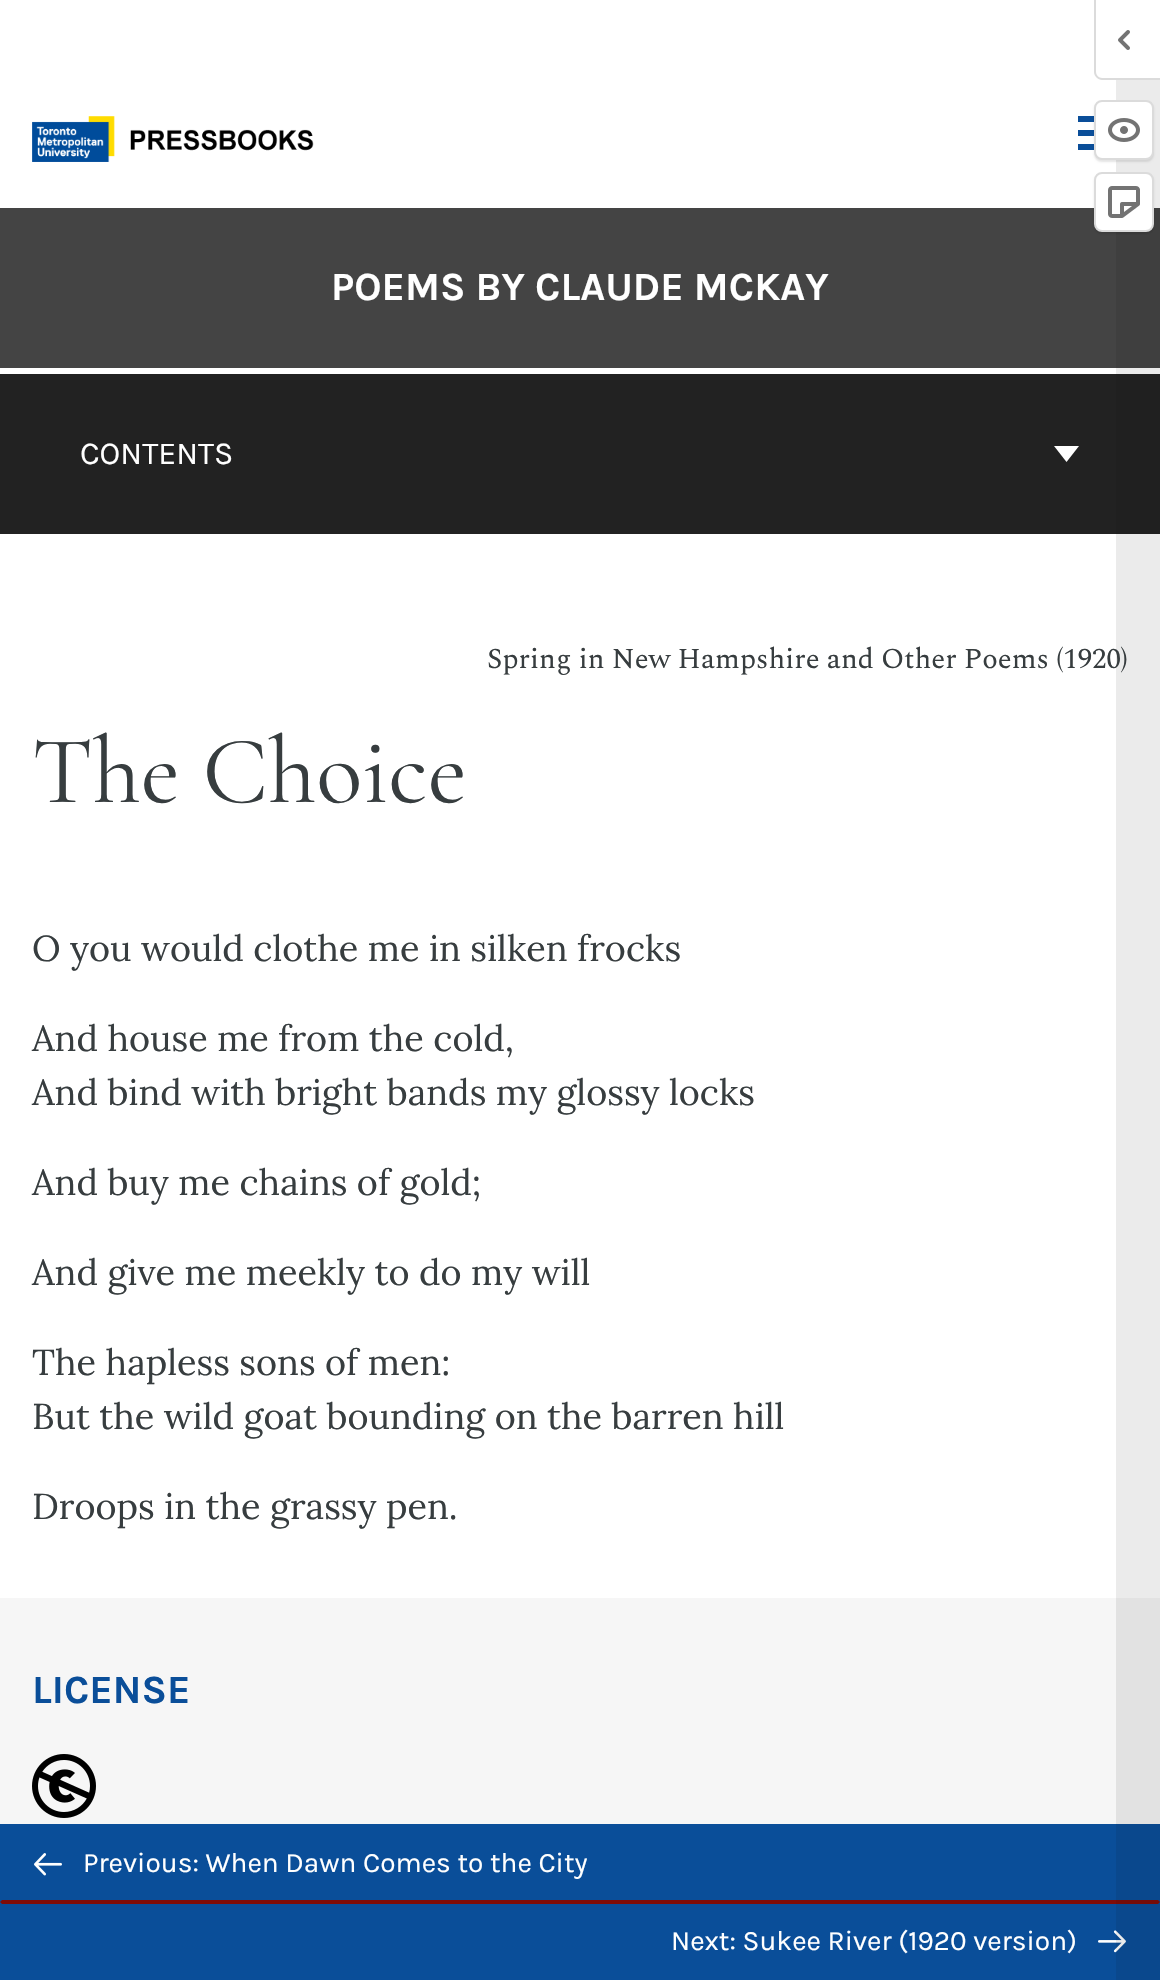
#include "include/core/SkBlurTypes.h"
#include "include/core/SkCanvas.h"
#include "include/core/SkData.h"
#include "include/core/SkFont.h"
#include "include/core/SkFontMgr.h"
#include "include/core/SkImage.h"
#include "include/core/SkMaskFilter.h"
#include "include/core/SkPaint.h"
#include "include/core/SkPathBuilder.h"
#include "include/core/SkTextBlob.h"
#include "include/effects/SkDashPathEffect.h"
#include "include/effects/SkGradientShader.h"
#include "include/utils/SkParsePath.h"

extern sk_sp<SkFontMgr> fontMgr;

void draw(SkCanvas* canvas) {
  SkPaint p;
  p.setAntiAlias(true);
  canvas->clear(SK_ColorWHITE);
  p.setColor(SkColorSetRGB(34, 34, 34));
  canvas->drawRect(SkRect::MakeLTRB(0, 374, 1160, 534), p);
  p.setColor(SkColorSetRGB(68, 68, 68));
  canvas->drawRect(SkRect::MakeLTRB(0, 208, 1160, 368), p);
  p.setColor(SkColorSetRGB(246, 246, 246));
  canvas->drawRect(SkRect::MakeLTRB(0, 1598, 1160, 1824), p);
  p.setColor(SkColorSetRGB(10, 78, 153));
  canvas->drawRect(SkRect::MakeLTRB(0, 1824, 1160, 1980), p);
  p.setColor(SkColorSetRGB(127, 12, 7));
  canvas->drawPath(SkPathBuilder().moveTo(1160, 1902).lineTo(0, 1902).lineTo(2, 1900).lineTo(1158, 1900).close().detach(), p);
  canvas->drawPath(SkPathBuilder().moveTo(0, 1902).lineTo(1160, 1902).lineTo(1158, 1904).lineTo(2, 1904).close().detach(), p);
  canvas->drawImageRect(SkImages::DeferredFromEncodedData(SkData::MakeFromFileName("images/7.png")), SkRect::MakeLTRB(1098, 1930, 1126, 1953), SkSamplingOptions());
  p.setColor(SkColorSetARGB(20, 0, 0, 0));
  canvas->drawRect(SkRect::MakeLTRB(1116, 80, 1160, 1980), p);
  p.setColor(SkColorSetRGB(219, 219, 219));
  canvas->drawPath(SkPathBuilder(SkPathFillType::kEvenOdd).moveTo(1094, 0).lineTo(1160, 0).lineTo(1160, 80).lineTo(1102, 80).cubicTo(1098, 80, 1094, 76, 1094, 72).close().moveTo(1096, 0).lineTo(1160, 0).lineTo(1160, 78).lineTo(1102, 78).cubicTo(1099, 78, 1096, 75, 1096, 72).close().detach(), p);
  canvas->drawImageRect(SkImages::DeferredFromEncodedData(SkData::MakeFromFileName("images/1.png")), SkRect::MakeLTRB(1118, 30, 1130, 50), SkSamplingOptions());
  p.setColor(SkColorSetRGB(10, 78, 153));
  canvas->drawRect(SkRect::MakeLTRB(1078, 130, 1094, 136), p);
  canvas->drawRect(SkRect::MakeLTRB(1078, 116, 1094, 122), p);
  canvas->drawRect(SkRect::MakeLTRB(1078, 144, 1094, 150), p);
  p.setColor(SkColorSetARGB(26, 0, 0, 0));
  p.setMaskFilter(SkMaskFilter::MakeBlur(kNormal_SkBlurStyle, 1));
  canvas->drawRoundRect(SkRect::MakeLTRB(1094, 102, 1154, 162), 8, 8, p);
  p.setMaskFilter(nullptr);
  p.setColor(SK_ColorWHITE);
  canvas->drawRoundRect(SkRect::MakeLTRB(1095, 101, 1153, 159), 7, 7, p);
  p.setStyle(SkPaint::kStroke_Style);
  p.setStrokeWidth(2);
  p.setColor(SkColorSetRGB(219, 219, 219));
  canvas->drawRoundRect(SkRect::MakeLTRB(1095, 101, 1153, 159), 7, 7, p);
  canvas->drawImageRect(SkImages::DeferredFromEncodedData(SkData::MakeFromFileName("images/2.png")), SkRect::MakeLTRB(1108, 118, 1140, 142), SkSamplingOptions());
  p.setStyle(SkPaint::kFill_Style);
  p.setColor(SkColorSetARGB(26, 0, 0, 0));
  p.setMaskFilter(SkMaskFilter::MakeBlur(kNormal_SkBlurStyle, 1));
  canvas->drawRoundRect(SkRect::MakeLTRB(1094, 174, 1154, 234), 8, 8, p);
  p.setMaskFilter(nullptr);
  p.setColor(SK_ColorWHITE);
  canvas->drawRoundRect(SkRect::MakeLTRB(1095, 173, 1153, 231), 7, 7, p);
  p.setStyle(SkPaint::kStroke_Style);
  p.setColor(SkColorSetRGB(219, 219, 219));
  canvas->drawRoundRect(SkRect::MakeLTRB(1095, 173, 1153, 231), 7, 7, p);
  canvas->drawImageRect(SkImages::DeferredFromEncodedData(SkData::MakeFromFileName("images/3.png")), SkRect::MakeLTRB(1108, 186, 1140, 218), SkSamplingOptions());
  canvas->drawImageRect(SkImages::DeferredFromEncodedData(SkData::MakeFromFileName("images/4.png")), SkRect::MakeLTRB(32, 116, 314, 162), SkSamplingOptions());
  p.setStyle(SkPaint::kFill_Style);
  p.setColor(SK_ColorWHITE);
  canvas->drawPath(SkPathBuilder(SkPathFillType::kEvenOdd).moveTo(1066.5f, 462).lineTo(1054, 446).lineTo(1079, 446).close().detach(), p);
  canvas->drawImageRect(SkImages::DeferredFromEncodedData(SkData::MakeFromFileName("images/5.png")), SkRect::MakeLTRB(32, 1754, 96, 1818), SkSamplingOptions());
  canvas->drawImageRect(SkImages::DeferredFromEncodedData(SkData::MakeFromFileName("images/6.png")), SkRect::MakeLTRB(34, 1853, 62, 1876), SkSamplingOptions());
  SkFont font1(fontMgr->matchFamilyStyle("Karla", SkFontStyle::Bold()), 40);
  font1.setSubpixel(true);
  canvas->drawString("POEMS BY CLAUDE MCKAY", 331, 300, font1, p);
  SkFont font2(fontMgr->matchFamilyStyle("Karla", SkFontStyle::Normal()), 32);
  font2.setSubpixel(true);
  canvas->drawString("CONTENTS", 80, 464, font2, p);
  SkFont font3(fontMgr->matchFamilyStyle("Spectral", SkFontStyle::Normal()), 28.8f);
  font3.setSubpixel(true);
  p.setColor(SkColorSetRGB(55, 61, 63));
  canvas->drawString("Spring in New Hampshire and Other Poems (1920)", 487, 668, font3, p);
  SkFont font4(fontMgr->matchFamilyStyle("Cormorant Garamond", SkFontStyle::Normal()), 96);
  font4.setSubpixel(true);
  canvas->drawString("The Choice", 32, 802, font4, p);
  SkFont font5(fontMgr->matchFamilyStyle("Lora", SkFontStyle::Normal()), 36);
  font5.setSubpixel(true);
  canvas->drawString("O you would clothe me in silken frocks", 32, 961, font5, p);
  canvas->drawString("And house me from the cold,", 32, 1051, font5, p);
  canvas->drawString("And bind with bright bands my glossy locks", 32, 1105, font5, p);
  canvas->drawString("And buy me chains of gold;", 32, 1195, font5, p);
  canvas->drawString("And give me meekly to do my will", 32, 1285, font5, p);
  canvas->drawString("The hapless sons of men:", 32, 1375, font5, p);
  canvas->drawString("But the wild goat bounding on the barren hill", 32, 1429, font5, p);
  canvas->drawString("Droops in the grassy pen.", 32, 1519, font5, p);
  p.setColor(SkColorSetRGB(10, 78, 153));
  canvas->drawString("LICENSE", 32, 1703, font1, p);
  SkFont font6(fontMgr->matchFamilyStyle("Karla", SkFontStyle::Normal()), 28);
  font6.setSubpixel(true);
  p.setColor(SK_ColorWHITE);
  canvas->drawString("Previous: When Dawn Comes to the City", 83, 1872, font6, p);
  canvas->drawString("Next: Sukee River (1920 version)", 671, 1950, font6, p);
}
